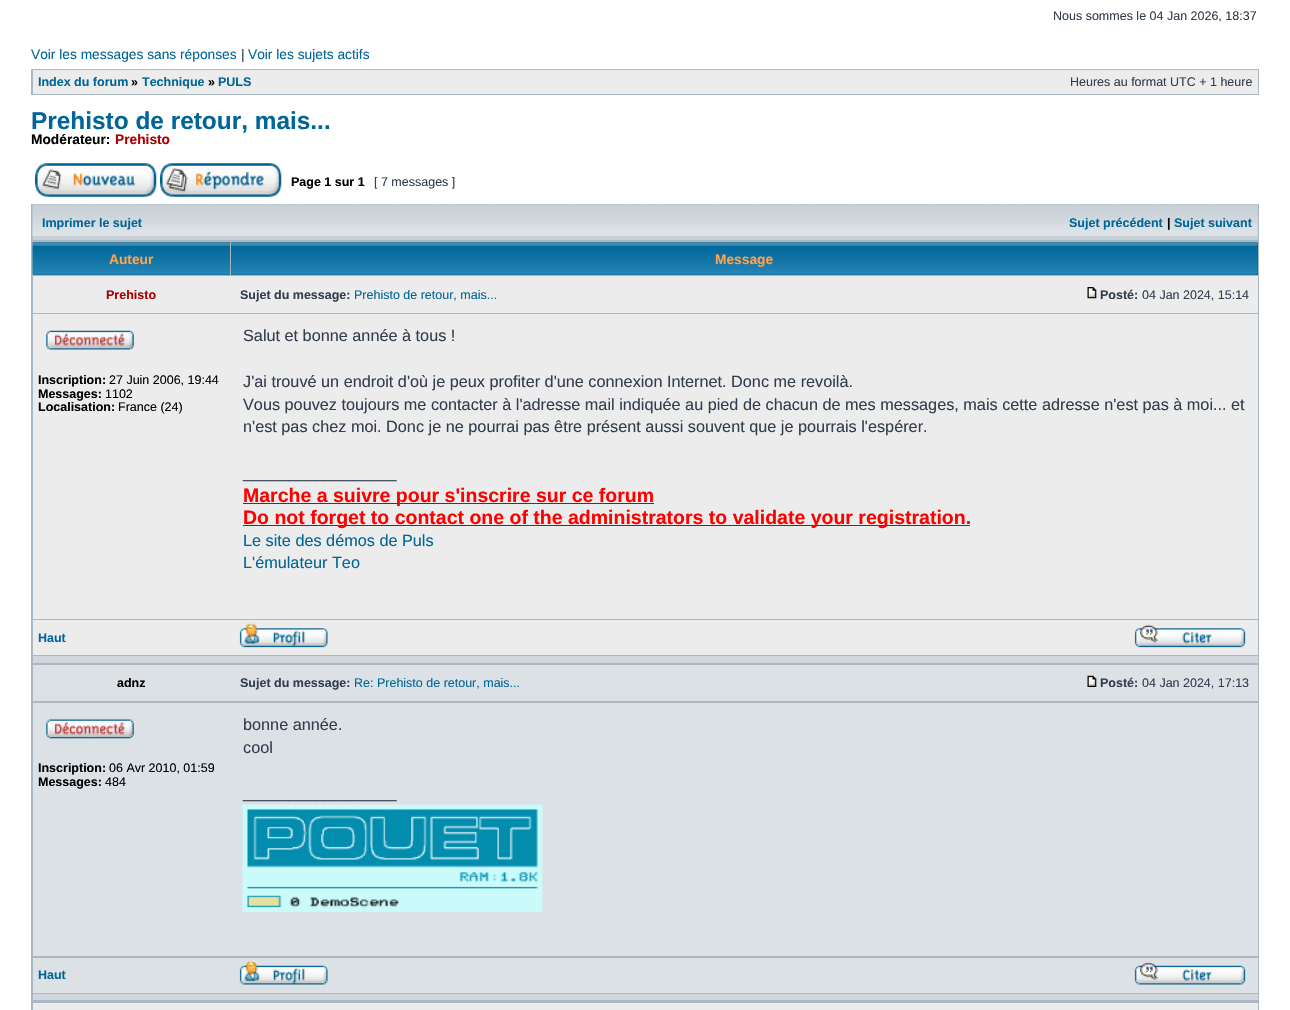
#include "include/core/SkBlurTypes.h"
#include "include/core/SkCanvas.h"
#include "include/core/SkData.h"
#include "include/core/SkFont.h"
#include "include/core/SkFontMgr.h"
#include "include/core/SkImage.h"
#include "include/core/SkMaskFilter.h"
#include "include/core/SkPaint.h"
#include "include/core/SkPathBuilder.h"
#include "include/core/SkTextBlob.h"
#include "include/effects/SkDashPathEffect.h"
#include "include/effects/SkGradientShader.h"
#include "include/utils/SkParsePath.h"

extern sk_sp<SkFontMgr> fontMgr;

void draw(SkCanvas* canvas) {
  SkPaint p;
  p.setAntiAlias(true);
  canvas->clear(SK_ColorWHITE);
  p.setColor(SkColorSetRGB(169, 184, 194));
  canvas->drawRect(SkRect::MakeLTRB(31, 69, 1259, 95), p);
  p.setColor(SkColorSetRGB(236, 236, 236));
  canvas->drawRect(SkRect::MakeLTRB(33, 70, 1258, 94), p);
  canvas->drawImageRect(SkImages::DeferredFromEncodedData(SkData::MakeFromFileName("images/1.png")), SkRect::MakeLTRB(35, 163, 157, 197), SkSamplingOptions());
  canvas->drawImageRect(SkImages::DeferredFromEncodedData(SkData::MakeFromFileName("images/2.png")), SkRect::MakeLTRB(160, 163, 282, 197), SkSamplingOptions());
  p.setColor(SkColorSetRGB(169, 184, 194));
  canvas->drawRect(SkRect::MakeLTRB(31, 204, 1259, 1010), p);
  p.setColor(SkColorSetRGB(199, 208, 215));
  canvas->drawRect(SkRect::MakeLTRB(33, 205, 1258, 240), p);
  canvas->drawImageRect(SkImages::DeferredFromEncodedData(SkData::MakeFromFileName("images/3.png")), SkRect::MakeLTRB(32, 204, 1258, 240), SkSamplingOptions());
  p.setColor(SkColorSetRGB(0, 102, 153));
  canvas->drawRect(SkRect::MakeLTRB(33, 274, 230, 275), p);
  canvas->drawImageRect(SkImages::DeferredFromEncodedData(SkData::MakeFromFileName("images/4.png")), SkRect::MakeLTRB(32, 242, 230, 275), SkSamplingOptions());
  canvas->drawRect(SkRect::MakeLTRB(231, 243, 1258, 275), p);
  canvas->drawImageRect(SkImages::DeferredFromEncodedData(SkData::MakeFromFileName("images/5.png")), SkRect::MakeLTRB(231, 242, 1258, 275), SkSamplingOptions());
  p.setColor(SkColorSetRGB(236, 236, 236));
  canvas->drawRect(SkRect::MakeLTRB(33, 276, 1258, 313), p);
  canvas->drawImageRect(SkImages::DeferredFromEncodedData(SkData::MakeFromFileName("images/6.png")), SkRect::MakeLTRB(1087, 287, 1097, 299), SkSamplingOptions());
  canvas->drawRect(SkRect::MakeLTRB(33, 314, 1258, 619), p);
  canvas->drawImageRect(SkImages::DeferredFromEncodedData(SkData::MakeFromFileName("images/7.png")), SkRect::MakeLTRB(46, 330, 134, 350), SkSamplingOptions());
  p.setColor(SkColorSetRGB(50, 61, 79));
  canvas->drawRect(SkRect::MakeLTRB(243, 503, 654, 504), p);
  canvas->drawRect(SkRect::MakeLTRB(243, 525, 970, 526), p);
  p.setColor(SkColorSetRGB(236, 236, 236));
  canvas->drawRect(SkRect::MakeLTRB(33, 620, 1258, 655), p);
  canvas->drawImageRect(SkImages::DeferredFromEncodedData(SkData::MakeFromFileName("images/8.png")), SkRect::MakeLTRB(239, 623, 328, 648), SkSamplingOptions());
  canvas->drawImageRect(SkImages::DeferredFromEncodedData(SkData::MakeFromFileName("images/9.png")), SkRect::MakeLTRB(1134, 624, 1246, 648), SkSamplingOptions());
  p.setColor(SkColorSetRGB(209, 215, 220));
  canvas->drawRect(SkRect::MakeLTRB(33, 656, 1258, 663), p);
  p.setColor(SkColorSetRGB(220, 225, 229));
  canvas->drawRect(SkRect::MakeLTRB(33, 665, 1258, 701), p);
  canvas->drawImageRect(SkImages::DeferredFromEncodedData(SkData::MakeFromFileName("images/10.png")), SkRect::MakeLTRB(1087, 675, 1097, 687), SkSamplingOptions());
  canvas->drawRect(SkRect::MakeLTRB(33, 703, 1258, 956), p);
  canvas->drawImageRect(SkImages::DeferredFromEncodedData(SkData::MakeFromFileName("images/11.png")), SkRect::MakeLTRB(46, 719, 134, 739), SkSamplingOptions());
  canvas->drawImageRect(SkImages::DeferredFromEncodedData(SkData::MakeFromFileName("images/12.png")), SkRect::MakeLTRB(242, 804, 543, 912), SkSamplingOptions());
  canvas->drawRect(SkRect::MakeLTRB(33, 958, 1258, 993), p);
  canvas->drawImageRect(SkImages::DeferredFromEncodedData(SkData::MakeFromFileName("images/13.png")), SkRect::MakeLTRB(239, 961, 328, 985), SkSamplingOptions());
  canvas->drawImageRect(SkImages::DeferredFromEncodedData(SkData::MakeFromFileName("images/14.png")), SkRect::MakeLTRB(1134, 962, 1246, 985), SkSamplingOptions());
  p.setColor(SkColorSetRGB(209, 215, 220));
  canvas->drawRect(SkRect::MakeLTRB(33, 994, 1258, 1000), p);
  p.setColor(SkColorSetRGB(236, 236, 236));
  canvas->drawRect(SkRect::MakeLTRB(33, 1003, 1258, 1010), p);
  SkFont font1(fontMgr->matchFamilyStyle("Liberation Sans", SkFontStyle::Normal()), 12.5f);
  font1.setSubpixel(true);
  p.setColor(SkColorSetRGB(50, 61, 79));
  canvas->drawString("Nous sommes le 04 Jan 2026, 18:37", 1053, 20, font1, p);
  SkFont font2(fontMgr->matchFamilyStyle("Liberation Sans", SkFontStyle::Normal()), 13.75f);
  font2.setSubpixel(true);
  p.setColor(SkColorSetRGB(0, 101, 151));
  canvas->drawString("Voir les messages sans réponses", 31, 59, font2, p);
  p.setColor(SkColorSetRGB(50, 61, 79));
  canvas->drawString("|", 241, 59, font2, p);
  p.setColor(SkColorSetRGB(0, 101, 151));
  canvas->drawString("Voir les sujets actifs", 248, 59, font2, p);
  SkFont font3(fontMgr->matchFamilyStyle("Liberation Sans", SkFontStyle::Bold()), 12.5f);
  font3.setSubpixel(true);
  canvas->drawString("Index du forum", 38, 86, font3, p);
  p.setColor(SK_ColorBLACK);
  canvas->drawString("»", 131, 86, font3, p);
  p.setColor(SkColorSetRGB(0, 101, 151));
  canvas->drawString("Technique", 142, 86, font3, p);
  p.setColor(SK_ColorBLACK);
  canvas->drawString("»", 208, 86, font3, p);
  p.setColor(SkColorSetRGB(0, 101, 151));
  canvas->drawString("PULS", 218, 86, font3, p);
  p.setColor(SkColorSetRGB(50, 61, 79));
  canvas->drawString("Heures au format UTC + 1 heure", 1070, 86, font1, p);
  SkFont font4(fontMgr->matchFamilyStyle("Liberation Sans", SkFontStyle::Bold()), 24.4f);
  font4.setSubpixel(true);
  p.setColor(SkColorSetRGB(0, 101, 151));
  canvas->drawString("Prehisto de retour, mais...", 31, 129, font4, p);
  SkFont font5(fontMgr->matchFamilyStyle("Liberation Sans", SkFontStyle::Bold()), 13.75f);
  font5.setSubpixel(true);
  p.setColor(SK_ColorBLACK);
  canvas->drawString("Modérateur:", 31, 144, font5, p);
  p.setColor(SkColorSetRGB(170, 0, 0));
  canvas->drawString("Prehisto", 115, 144, font5, p);
  p.setColor(SK_ColorBLACK);
  canvas->drawString("Page 1 sur 1", 291, 186, font3, p);
  p.setColor(SkColorSetRGB(50, 61, 79));
  canvas->drawString("[ 7 messages ]", 374, 186, font1, p);
  p.setColor(SkColorSetRGB(0, 101, 151));
  canvas->drawString("Imprimer le sujet", 42, 227, font3, p);
  canvas->drawString("Sujet précédent", 1069, 227, font3, p);
  p.setColor(SK_ColorBLACK);
  canvas->drawString("|", 1167, 227, font3, p);
  p.setColor(SkColorSetRGB(0, 101, 151));
  canvas->drawString("Sujet suivant", 1174, 227, font3, p);
  p.setColor(SkColorSetRGB(255, 163, 79));
  canvas->drawString("Auteur", 109, 264, font5, p);
  canvas->drawString("Message", 715, 264, font5, p);
  p.setColor(SkColorSetRGB(170, 0, 0));
  canvas->drawString("Prehisto", 106, 299, font3, p);
  p.setColor(SkColorSetRGB(50, 61, 79));
  canvas->drawString("Sujet du message:", 240, 299, font3, p);
  p.setColor(SkColorSetRGB(0, 101, 151));
  canvas->drawString("Prehisto de retour, mais...", 354, 299, font1, p);
  p.setColor(SkColorSetRGB(50, 61, 79));
  canvas->drawString("Posté:", 1100, 299, font3, p);
  canvas->drawString("04 Jan 2024, 15:14", 1142, 299, font1, p);
  p.setColor(SK_ColorBLACK);
  canvas->drawString("Inscription:", 38, 384, font3, p);
  canvas->drawString("27 Juin 2006, 19:44", 109, 384, font1, p);
  canvas->drawString("Messages:", 38, 398, font3, p);
  canvas->drawString("1102", 105, 398, font1, p);
  canvas->drawString("Localisation:", 38, 411, font3, p);
  canvas->drawString("France (24)", 118, 411, font1, p);
  SkFont font6(fontMgr->matchFamilyStyle("Liberation Sans", SkFontStyle::Normal()), 16.25f);
  font6.setSubpixel(true);
  p.setColor(SkColorSetRGB(50, 61, 79));
  canvas->drawString("Salut et bonne année à tous !", 243, 341, font6, p);
  canvas->drawString("J'ai trouvé un endroit d'où je peux profiter d'une connexion Internet. Donc me revoilà.", 243, 387, font6, p);
  canvas->drawString("Vous pouvez toujours me contacter à l'adresse mail indiquée au pied de chacun de mes messages, mais cette adresse n'est pas à moi... et", 243, 410, font6, p);
  canvas->drawString("n'est pas chez moi. Donc je ne pourrai pas être présent aussi souvent que je pourrais l'espérer.", 243, 432, font6, p);
  canvas->drawString("_________________", 243, 478, font6, p);
  SkFont font7(fontMgr->matchFamilyStyle("Liberation Sans", SkFontStyle::Bold()), 19.5f);
  font7.setSubpixel(true);
  p.setColor(SkColorSetRGB(255, 0, 0));
  canvas->drawString("Marche a suivre pour s'inscrire sur ce forum", 243, 502, font7, p);
  canvas->drawString("Do not forget to contact one of the administrators to validate your registration.", 243, 524, font7, p);
  p.setColor(SkColorSetRGB(0, 101, 151));
  canvas->drawString("Le site des démos de Puls", 243, 546, font6, p);
  canvas->drawString("L'émulateur Teo", 243, 568, font6, p);
  canvas->drawString("Haut", 38, 642, font3, p);
  p.setColor(SK_ColorBLACK);
  canvas->drawString("adnz", 117, 687, font3, p);
  p.setColor(SkColorSetRGB(50, 61, 79));
  canvas->drawString("Sujet du message:", 240, 687, font3, p);
  p.setColor(SkColorSetRGB(0, 101, 151));
  canvas->drawString("Re: Prehisto de retour, mais...", 354, 687, font1, p);
  p.setColor(SkColorSetRGB(50, 61, 79));
  canvas->drawString("Posté:", 1100, 687, font3, p);
  canvas->drawString("04 Jan 2024, 17:13", 1142, 687, font1, p);
  p.setColor(SK_ColorBLACK);
  canvas->drawString("Inscription:", 38, 772, font3, p);
  canvas->drawString("06 Avr 2010, 01:59", 109, 772, font1, p);
  canvas->drawString("Messages:", 38, 786, font3, p);
  canvas->drawString("484", 105, 786, font1, p);
  p.setColor(SkColorSetRGB(50, 61, 79));
  canvas->drawString("bonne année.", 243, 730, font6, p);
  canvas->drawString("cool", 243, 753, font6, p);
  canvas->drawString("_________________", 243, 798, font6, p);
  p.setColor(SkColorSetRGB(0, 101, 151));
  canvas->drawString("Haut", 38, 979, font3, p);
}
